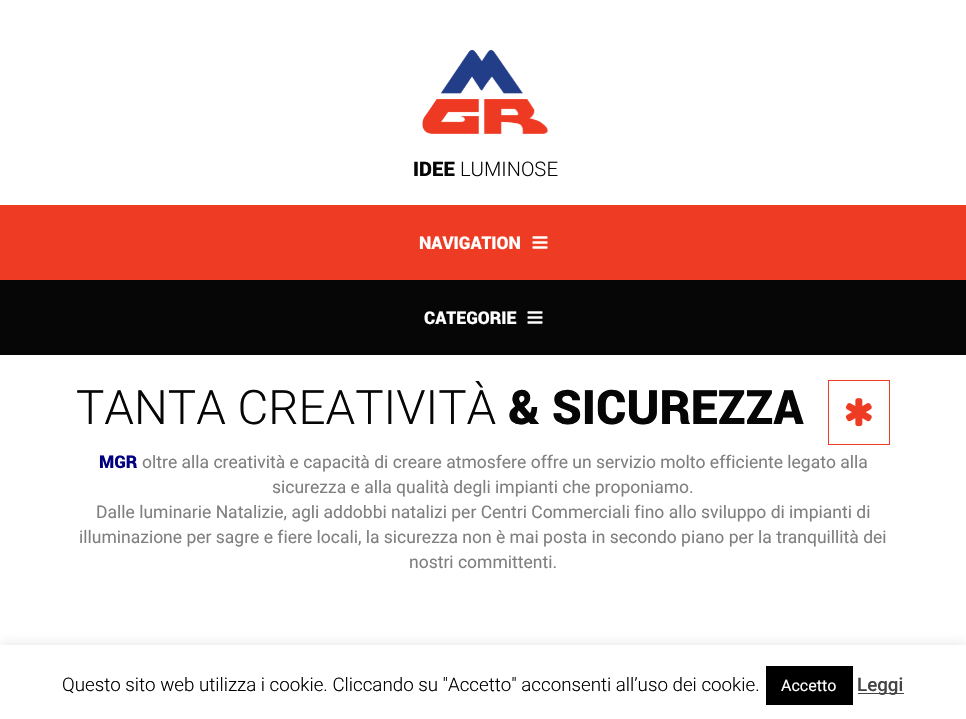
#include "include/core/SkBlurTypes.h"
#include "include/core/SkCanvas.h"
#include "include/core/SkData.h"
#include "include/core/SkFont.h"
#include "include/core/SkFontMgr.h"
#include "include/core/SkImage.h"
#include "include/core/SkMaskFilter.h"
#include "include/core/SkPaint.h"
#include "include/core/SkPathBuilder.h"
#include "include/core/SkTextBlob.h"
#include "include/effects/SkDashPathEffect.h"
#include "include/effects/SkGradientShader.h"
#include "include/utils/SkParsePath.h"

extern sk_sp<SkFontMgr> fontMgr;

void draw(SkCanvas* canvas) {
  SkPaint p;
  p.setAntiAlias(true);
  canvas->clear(SK_ColorWHITE);
  canvas->drawImageRect(SkImages::DeferredFromEncodedData(SkData::MakeFromFileName("images/1.png")), SkRect::MakeLTRB(422, 50, 548, 134), SkSamplingOptions());
  p.setColor(SkColorSetRGB(238, 59, 35));
  canvas->drawRect(SkRect::MakeLTRB(0, 205, 966, 280), p);
  canvas->drawImageRect(SkImages::DeferredFromEncodedData(SkData::MakeFromFileName("images/2.png")), SkRect::MakeLTRB(532, 236, 548, 249), SkSamplingOptions());
  p.setColor(SkColorSetRGB(6, 6, 6));
  canvas->drawRect(SkRect::MakeLTRB(0, 280, 966, 355), p);
  canvas->drawImageRect(SkImages::DeferredFromEncodedData(SkData::MakeFromFileName("images/3.png")), SkRect::MakeLTRB(527, 311, 543, 324), SkSamplingOptions());
  p.setStyle(SkPaint::kStroke_Style);
  p.setStrokeWidth(1);
  p.setColor(SkColorSetRGB(238, 59, 35));
  canvas->drawRect(SkRect::MakeLTRB(828.5f, 380.5f, 889.5f, 444.5f), p);
  canvas->drawImageRect(SkImages::DeferredFromEncodedData(SkData::MakeFromFileName("images/4.png")), SkRect::MakeLTRB(845, 398, 872, 427), SkSamplingOptions());
  p.setStyle(SkPaint::kFill_Style);
  p.setColor(SkColorSetARGB(77, 172, 171, 171));
  p.setMaskFilter(SkMaskFilter::MakeBlur(kNormal_SkBlurStyle, 6));
  canvas->drawRect(SkRect::MakeLTRB(0, 644, 966, 719), p);
  p.setMaskFilter(nullptr);
  p.setColor(SK_ColorWHITE);
  canvas->drawRect(SkRect::MakeLTRB(0, 645, 966, 719), p);
  p.setColor(SK_ColorBLACK);
  canvas->drawRect(SkRect::MakeLTRB(766, 666, 853, 705), p);
  p.setColor(SkColorSetRGB(68, 68, 68));
  canvas->drawRect(SkRect::MakeLTRB(858, 693, 904, 694), p);
  SkFont font1(fontMgr->matchFamilyStyle("Roboto", SkFontStyle(900, SkFontStyle::kNormal_Width, SkFontStyle::kUpright_Slant)), 20);
  font1.setSubpixel(true);
  p.setColor(SkColorSetRGB(6, 6, 6));
  canvas->drawString("IDEE", 413, 176, font1, p);
  SkFont font2(fontMgr->matchFamilyStyle("Roboto", SkFontStyle(300, SkFontStyle::kNormal_Width, SkFontStyle::kUpright_Slant)), 20);
  font2.setSubpixel(true);
  canvas->drawString("LUMINOSE", 460, 176, font2, p);
  SkFont font3(fontMgr->matchFamilyStyle("Roboto", SkFontStyle(900, SkFontStyle::kNormal_Width, SkFontStyle::kUpright_Slant)), 17.5f);
  font3.setSubpixel(true);
  p.setColor(SK_ColorWHITE);
  canvas->drawString("NAVIGATION", 419, 249, font3, p);
  canvas->drawString("CATEGORIE", 424, 324, font3, p);
  SkFont font4(fontMgr->matchFamilyStyle("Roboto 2", SkFontStyle(300, SkFontStyle::kNormal_Width, SkFontStyle::kUpright_Slant)), 47.5f);
  font4.setSubpixel(true);
  p.setColor(SkColorSetRGB(6, 6, 6));
  canvas->drawString("TANTA CREATIVITÀ", 76, 424, font4, p);
  SkFont font5(fontMgr->matchFamilyStyle("Roboto", SkFontStyle(900, SkFontStyle::kNormal_Width, SkFontStyle::kUpright_Slant)), 47.5f);
  font5.setSubpixel(true);
  canvas->drawString("& SICUREZZA", 508, 424, font5, p);
  p.setColor(SkColorSetRGB(0, 0, 128));
  canvas->drawString("MGR", 99, 468, font3, p);
  SkFont font6(fontMgr->matchFamilyStyle("Roboto", SkFontStyle::Normal()), 17.5f);
  font6.setSubpixel(true);
  p.setColor(SkColorSetRGB(127, 127, 127));
  canvas->drawString("oltre alla creatività e capacità di creare atmosfere offre un servizio molto efficiente legato alla", 142, 468, font6, p);
  canvas->drawString("sicurezza e alla qualità degli impianti che proponiamo.", 272, 493, font6, p);
  canvas->drawString("Dalle luminarie Natalizie, agli addobbi natalizi per Centri Commerciali fino allo sviluppo di impianti di", 96, 518, font6, p);
  canvas->drawString("illuminazione per sagre e fiere locali, la sicurezza non è mai posta in secondo piano per la tranquillità dei", 79, 543, font6, p);
  canvas->drawString("nostri committenti.", 409, 568, font6, p);
  SkFont font7(fontMgr->matchFamilyStyle("Roboto 2", SkFontStyle(300, SkFontStyle::kNormal_Width, SkFontStyle::kUpright_Slant)), 18.75f);
  font7.setSubpixel(true);
  p.setColor(SK_ColorBLACK);
  canvas->drawString("Questo sito web utilizza i cookie. Cliccando su \"Accetto\" acconsenti all’uso dei cookie.", 62, 691, font7, p);
  SkFont font8(fontMgr->matchFamilyStyle("Roboto", SkFontStyle::Normal()), 16);
  font8.setSubpixel(true);
  p.setColor(SK_ColorWHITE);
  canvas->drawString("Accetto", 781, 691, font8, p);
  SkFont font9(fontMgr->matchFamilyStyle("Roboto", SkFontStyle(500, SkFontStyle::kNormal_Width, SkFontStyle::kUpright_Slant)), 18.75f);
  font9.setSubpixel(true);
  p.setColor(SkColorSetRGB(68, 68, 68));
  canvas->drawString("Leggi", 857, 691, font9, p);
}
